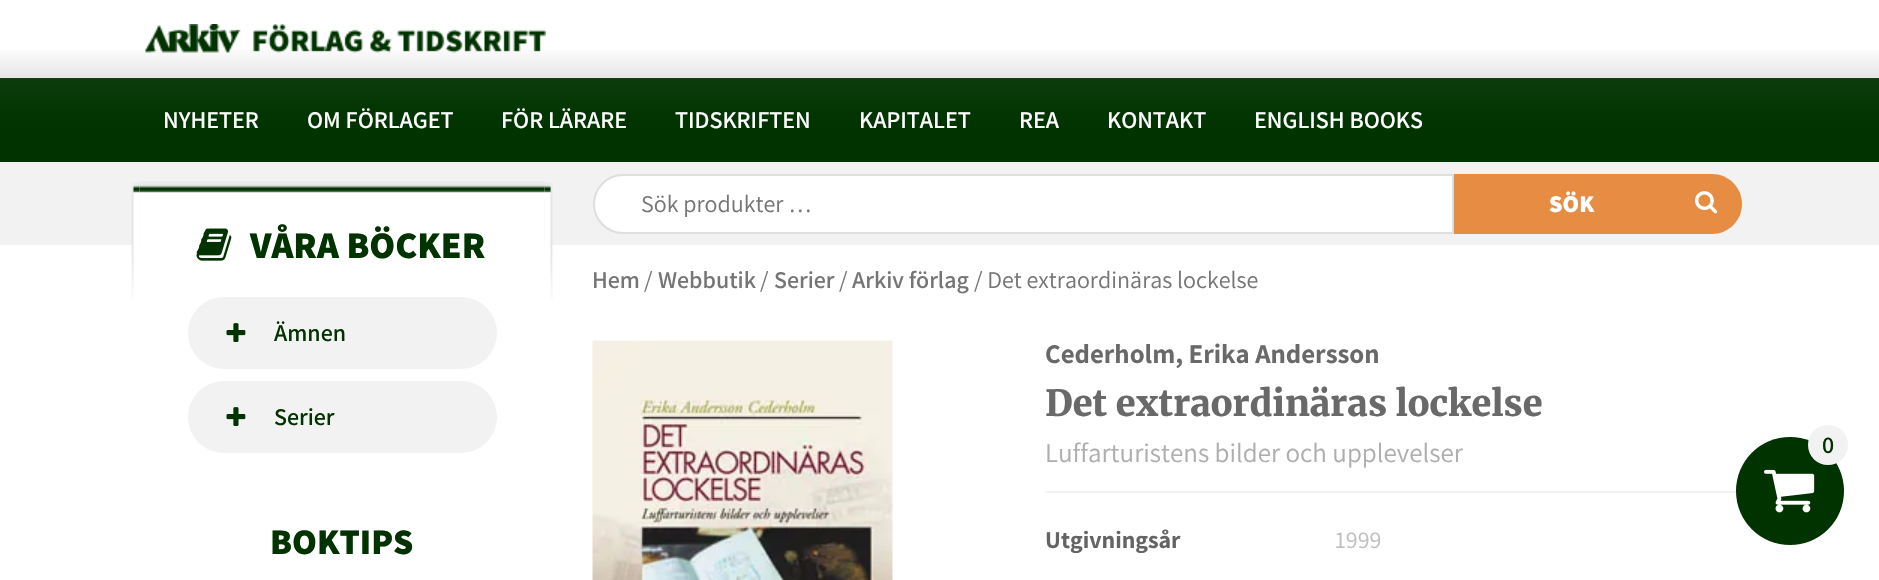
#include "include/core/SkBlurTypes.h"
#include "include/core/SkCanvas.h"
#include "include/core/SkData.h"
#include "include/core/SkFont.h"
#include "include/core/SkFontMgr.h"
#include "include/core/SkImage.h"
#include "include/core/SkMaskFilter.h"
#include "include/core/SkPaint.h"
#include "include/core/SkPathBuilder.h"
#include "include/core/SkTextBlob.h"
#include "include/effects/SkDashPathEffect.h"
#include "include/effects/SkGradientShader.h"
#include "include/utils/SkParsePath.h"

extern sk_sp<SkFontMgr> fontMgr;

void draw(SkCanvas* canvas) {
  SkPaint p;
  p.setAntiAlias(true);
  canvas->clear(SK_ColorWHITE);
  canvas->drawImageRect(SkImages::DeferredFromEncodedData(SkData::MakeFromFileName("images/1.png")), SkRect::MakeLTRB(0, 50, 1879, 78), SkSamplingOptions());
  canvas->drawImageRect(SkImages::DeferredFromEncodedData(SkData::MakeFromFileName("images/2.png")), SkRect::MakeLTRB(145, 24, 546, 53), SkSamplingOptions());
  p.setColor(SkColorSetRGB(17, 65, 17));
  canvas->drawRect(SkRect::MakeLTRB(0, 78, 1879, 79), p);
  canvas->drawImageRect(SkImages::DeferredFromEncodedData(SkData::MakeFromFileName("images/3.png")), SkRect::MakeLTRB(0, 79, 1879, 162), SkSamplingOptions());
  p.setColor(SkColorSetRGB(242, 242, 242));
  canvas->drawRect(SkRect::MakeLTRB(0, 162, 1879, 245), p);
  p.setColor(SK_ColorWHITE);
  canvas->drawPath(SkPathBuilder().moveTo(623, 175).lineTo(1453, 175).lineTo(1453, 233).lineTo(623, 233).cubicTo(607, 233, 594, 220, 594, 204).cubicTo(594, 188, 607, 175, 623, 175).close().detach(), p);
  p.setStyle(SkPaint::kStroke_Style);
  p.setStrokeWidth(2);
  p.setColor(SkColorSetRGB(222, 222, 222));
  canvas->drawPath(SkPathBuilder().moveTo(623, 175).lineTo(1453, 175).lineTo(1453, 233).lineTo(623, 233).cubicTo(607, 233, 594, 220, 594, 204).cubicTo(594, 188, 607, 175, 623, 175).close().detach(), p);
  p.setStyle(SkPaint::kFill_Style);
  p.setColor(SkColorSetRGB(230, 140, 67));
  canvas->drawPath(SkPathBuilder().moveTo(1454, 174).lineTo(1712, 174).cubicTo(1728.5f, 174, 1742, 187.5f, 1742, 204).cubicTo(1742, 220.5f, 1728.5f, 234, 1712, 234).lineTo(1454, 234).close().detach(), p);
  canvas->drawImageRect(SkImages::DeferredFromEncodedData(SkData::MakeFromFileName("images/4.png")), SkRect::MakeLTRB(1695, 191, 1718, 214), SkSamplingOptions());
  canvas->drawImageRect(SkImages::DeferredFromEncodedData(SkData::MakeFromFileName("images/5.png")), SkRect::MakeLTRB(139, 181, 545, 245), SkSamplingOptions());
  canvas->drawImageRect(SkImages::DeferredFromEncodedData(SkData::MakeFromFileName("images/6.png")), SkRect::MakeLTRB(131, 182, 140, 299), SkSamplingOptions());
  canvas->drawImageRect(SkImages::DeferredFromEncodedData(SkData::MakeFromFileName("images/7.png")), SkRect::MakeLTRB(196, 228, 232, 261), SkSamplingOptions());
  canvas->drawImageRect(SkImages::DeferredFromEncodedData(SkData::MakeFromFileName("images/8.png")), SkRect::MakeLTRB(544, 182, 553, 300), SkSamplingOptions());
  p.setColor(SkColorSetRGB(242, 242, 242));
  canvas->drawRoundRect(SkRect::MakeLTRB(188, 297, 497, 369), 36, 36, p);
  canvas->drawImageRect(SkImages::DeferredFromEncodedData(SkData::MakeFromFileName("images/9.png")), SkRect::MakeLTRB(226, 323, 246, 342), SkSamplingOptions());
  canvas->drawRoundRect(SkRect::MakeLTRB(188, 381, 497, 453), 36, 36, p);
  canvas->drawImageRect(SkImages::DeferredFromEncodedData(SkData::MakeFromFileName("images/9.png")), SkRect::MakeLTRB(226, 407, 246, 426), SkSamplingOptions());
  canvas->drawRect(SkRect::MakeLTRB(1046, 491, 1742, 493), p);
  p.setColor(SkColorSetRGB(0, 51, 0));
  canvas->drawCircle(1790, 491, 54, p);
  p.setColor(SkColorSetRGB(242, 242, 242));
  canvas->drawCircle(1828, 445, 20, p);
  canvas->drawImageRect(SkImages::DeferredFromEncodedData(SkData::MakeFromFileName("images/10.png")), SkRect::MakeLTRB(1764, 469, 1815, 513), SkSamplingOptions());
  canvas->drawImageRect(SkImages::DeferredFromEncodedData(SkData::MakeFromFileName("images/11.png")), SkRect::MakeLTRB(592, 340, 893, 580), SkSamplingOptions());
  SkFont font1(fontMgr->matchFamilyStyle("Assistant", SkFontStyle(600, SkFontStyle::kNormal_Width, SkFontStyle::kUpright_Slant)), 24);
  font1.setSubpixel(true);
  p.setColor(SK_ColorWHITE);
  canvas->drawString("NYHETER", 163, 128, font1, p);
  canvas->drawString("OM FÖRLAGET", 307, 128, font1, p);
  canvas->drawString("FÖR LÄRARE", 501, 128, font1, p);
  canvas->drawString("TIDSKRIFTEN", 675, 128, font1, p);
  canvas->drawString("KAPITALET", 859, 128, font1, p);
  canvas->drawString("REA", 1019, 128, font1, p);
  canvas->drawString("KONTAKT", 1107, 128, font1, p);
  canvas->drawString("ENGLISH BOOKS", 1254, 128, font1, p);
  SkFont font2(fontMgr->matchFamilyStyle("Assistant", SkFontStyle::Normal()), 24);
  font2.setSubpixel(true);
  p.setColor(SkColorSetRGB(117, 117, 117));
  canvas->drawString("Sök produkter …", 641, 212, font2, p);
  SkFont font3(fontMgr->matchFamilyStyle("Assistant", SkFontStyle(800, SkFontStyle::kNormal_Width, SkFontStyle::kUpright_Slant)), 24);
  font3.setSubpixel(true);
  p.setColor(SK_ColorWHITE);
  canvas->drawString("SÖK", 1549, 212, font3, p);
  SkFont font4(fontMgr->matchFamilyStyle("Assistant", SkFontStyle(800, SkFontStyle::kNormal_Width, SkFontStyle::kUpright_Slant)), 37.5f);
  font4.setSubpixel(true);
  p.setColor(SkColorSetRGB(0, 51, 0));
  canvas->drawString("VÅRA BÖCKER", 250, 258, font4, p);
  canvas->drawString("Ämnen", 274, 341, font1, p);
  canvas->drawString("Serier", 274, 425, font1, p);
  SkFont font5(fontMgr->matchFamilyStyle("Assistant", SkFontStyle(800, SkFontStyle::kNormal_Width, SkFontStyle::kUpright_Slant)), 36);
  font5.setSubpixel(true);
  canvas->drawString("BOKTIPS", 270, 554, font5, p);
  canvas->drawString("0", 1822, 453, font1, p);
  p.setColor(SkColorSetRGB(117, 117, 117));
  canvas->drawString("Hem", 592, 288, font1, p);
  canvas->drawString("/", 644, 288, font2, p);
  canvas->drawString("Webbutik", 658, 288, font1, p);
  canvas->drawString("/", 760, 288, font2, p);
  canvas->drawString("Serier", 774, 288, font1, p);
  canvas->drawString("/", 839, 288, font2, p);
  canvas->drawString("Arkiv förlag", 852, 288, font1, p);
  canvas->drawString("/ Det extraordinäras lockelse", 974, 288, font2, p);
  SkFont font6(fontMgr->matchFamilyStyle("Assistant", SkFontStyle::Bold()), 27);
  font6.setSubpixel(true);
  p.setColor(SkColorSetRGB(106, 105, 105));
  canvas->drawString("Cederholm, Erika Andersson", 1045, 363, font6, p);
  SkFont font7(fontMgr->matchFamilyStyle("Merriweather", SkFontStyle(900, SkFontStyle::kNormal_Width, SkFontStyle::kUpright_Slant)), 36);
  font7.setSubpixel(true);
  canvas->drawString("Det extraordinäras lockelse", 1045, 416, font7, p);
  SkFont font8(fontMgr->matchFamilyStyle("Assistant", SkFontStyle::Normal()), 27);
  font8.setSubpixel(true);
  p.setColor(SkColorSetRGB(174, 174, 174));
  canvas->drawString("Luffarturistens bilder och upplevelser", 1045, 462, font8, p);
  SkFont font9(fontMgr->matchFamilyStyle("Assistant", SkFontStyle::Bold()), 24);
  font9.setSubpixel(true);
  p.setColor(SkColorSetRGB(100, 100, 100));
  canvas->drawString("Utgivningsår", 1045, 548, font9, p);
  p.setColor(SkColorSetRGB(191, 191, 191));
  canvas->drawString("1999", 1335, 548, font2, p);
}
